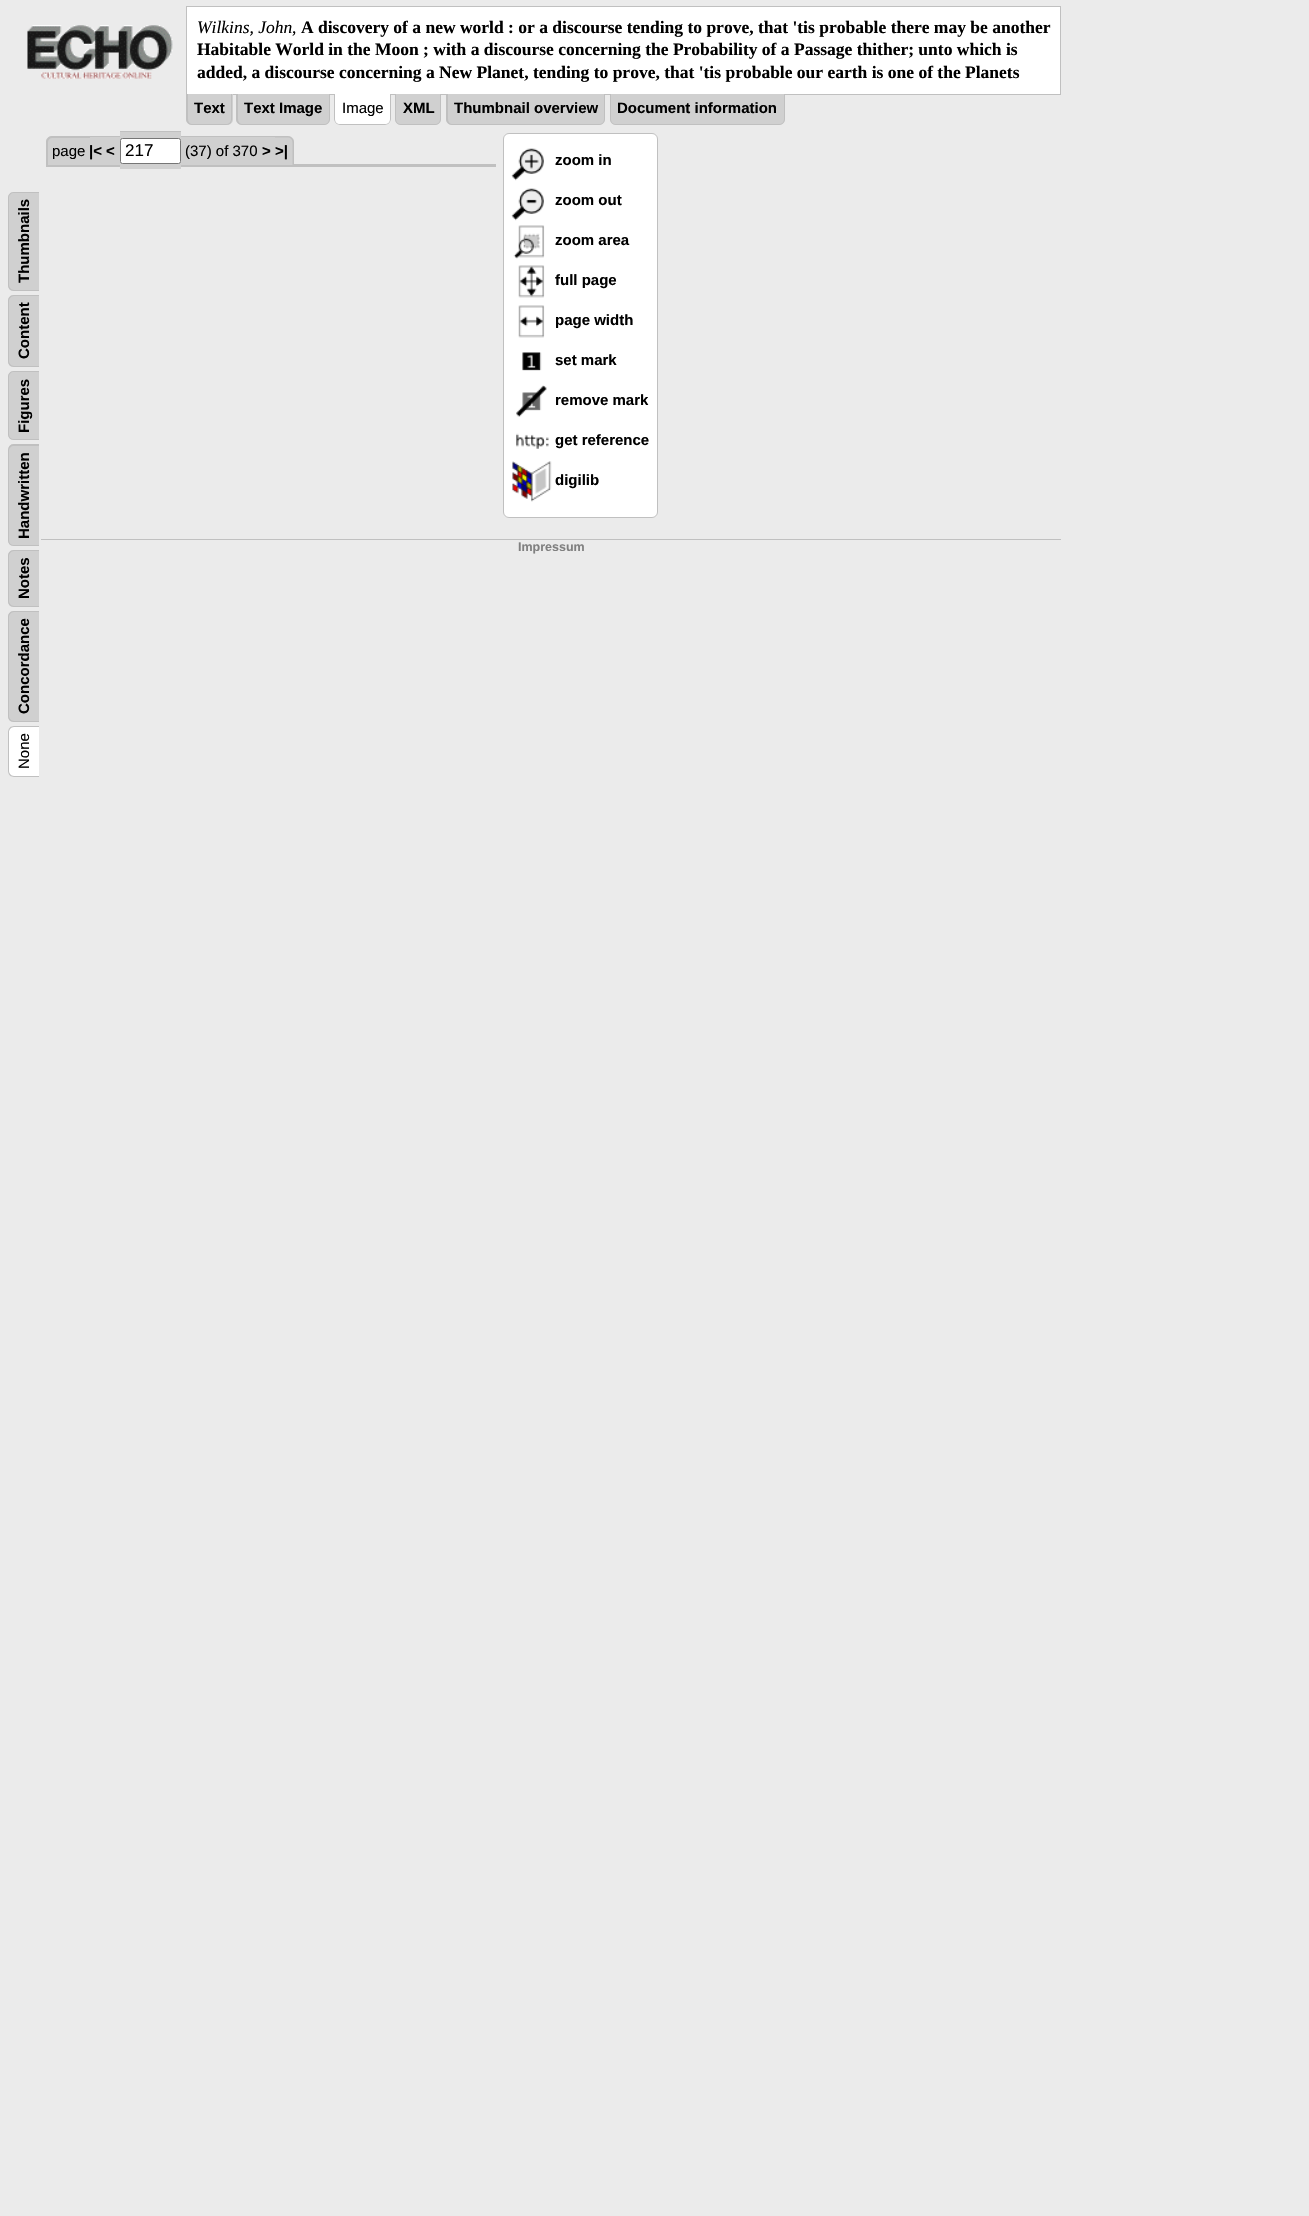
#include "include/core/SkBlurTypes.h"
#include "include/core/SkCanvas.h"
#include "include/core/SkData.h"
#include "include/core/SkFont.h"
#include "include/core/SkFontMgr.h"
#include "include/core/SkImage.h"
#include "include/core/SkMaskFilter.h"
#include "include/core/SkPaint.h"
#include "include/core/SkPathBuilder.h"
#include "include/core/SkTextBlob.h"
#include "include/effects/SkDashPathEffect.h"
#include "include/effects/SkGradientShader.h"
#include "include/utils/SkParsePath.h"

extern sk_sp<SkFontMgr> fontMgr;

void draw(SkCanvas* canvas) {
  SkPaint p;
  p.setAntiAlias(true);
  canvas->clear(SkColorSetRGB(235, 235, 235));
  canvas->drawImageRect(SkImages::DeferredFromEncodedData(SkData::MakeFromFileName("images/1.png")), SkRect::MakeLTRB(27, 25, 173, 79), SkSamplingOptions());
  p.setColor(SK_ColorWHITE);
  canvas->drawRect(SkRect::MakeLTRB(186.5f, 6.5f, 1060.5f, 94.5f), p);
  p.setStyle(SkPaint::kStroke_Style);
  p.setStrokeWidth(1);
  p.setColor(SkColorSetRGB(192, 192, 192));
  canvas->drawRect(SkRect::MakeLTRB(186.5f, 6.5f, 1060.5f, 94.5f), p);
  p.setStyle(SkPaint::kFill_Style);
  p.setColor(SkColorSetRGB(208, 208, 208));
  canvas->drawPath(SkPathBuilder().moveTo(186, 94).lineTo(233, 94).lineTo(233, 119).cubicTo(233, 122.5f, 230.5f, 125, 227, 125).lineTo(192, 125).cubicTo(188.5f, 125, 186, 122.5f, 186, 119).close().detach(), p);
  p.setColor(SkColorSetRGB(192, 192, 192));
  canvas->drawPath(SkPathBuilder(SkPathFillType::kEvenOdd).moveTo(186, 94).lineTo(232, 94).lineTo(232, 119).cubicTo(232, 122, 230, 125, 226, 125).lineTo(192, 125).cubicTo(189, 125, 186, 122, 186, 119).close().moveTo(188, 94).lineTo(231, 94).lineTo(231, 119).cubicTo(231, 122, 229, 124, 226, 124).lineTo(192, 124).cubicTo(190, 124, 188, 122, 188, 119).close().detach(), p);
  p.setColor(SkColorSetRGB(208, 208, 208));
  canvas->drawPath(SkPathBuilder().moveTo(236, 94).lineTo(330, 94).lineTo(330, 119).cubicTo(330, 122.5f, 327.5f, 125, 324, 125).lineTo(242, 125).cubicTo(238.5f, 125, 236, 122.5f, 236, 119).close().detach(), p);
  p.setColor(SkColorSetRGB(192, 192, 192));
  canvas->drawPath(SkPathBuilder(SkPathFillType::kEvenOdd).moveTo(236, 94).lineTo(330, 94).lineTo(330, 119).cubicTo(330, 122, 327, 125, 324, 125).lineTo(242, 125).cubicTo(239, 125, 236, 122, 236, 119).close().moveTo(238, 94).lineTo(329, 94).lineTo(329, 119).cubicTo(329, 122, 327, 124, 324, 124).lineTo(242, 124).cubicTo(240, 124, 238, 122, 238, 119).close().detach(), p);
  p.setColor(SK_ColorWHITE);
  canvas->drawPath(SkPathBuilder().moveTo(334, 94).lineTo(391, 94).lineTo(391, 119).cubicTo(391, 122.5f, 388.5f, 125, 385, 125).lineTo(340, 125).cubicTo(336.5f, 125, 334, 122.5f, 334, 119).close().detach(), p);
  p.setColor(SkColorSetRGB(192, 192, 192));
  canvas->drawPath(SkPathBuilder(SkPathFillType::kEvenOdd).moveTo(334, 94).lineTo(391, 94).lineTo(391, 119).cubicTo(391, 122, 388, 125, 385, 125).lineTo(340, 125).cubicTo(337, 125, 334, 122, 334, 119).close().moveTo(335, 94).lineTo(390, 94).lineTo(390, 119).cubicTo(390, 122, 388, 124, 385, 124).lineTo(340, 124).cubicTo(337, 124, 335, 122, 335, 119).close().detach(), p);
  p.setColor(SkColorSetRGB(208, 208, 208));
  canvas->drawPath(SkPathBuilder().moveTo(395, 94).lineTo(441, 94).lineTo(441, 119).cubicTo(441, 122.5f, 438.5f, 125, 435, 125).lineTo(401, 125).cubicTo(397.5f, 125, 395, 122.5f, 395, 119).close().detach(), p);
  p.setColor(SkColorSetRGB(192, 192, 192));
  canvas->drawPath(SkPathBuilder(SkPathFillType::kEvenOdd).moveTo(395, 94).lineTo(441, 94).lineTo(441, 119).cubicTo(441, 122, 438, 125, 435, 125).lineTo(401, 125).cubicTo(398, 125, 395, 122, 395, 119).close().moveTo(396, 94).lineTo(440, 94).lineTo(440, 119).cubicTo(440, 122, 438, 124, 435, 124).lineTo(401, 124).cubicTo(398, 124, 396, 122, 396, 119).close().detach(), p);
  p.setColor(SkColorSetRGB(208, 208, 208));
  canvas->drawPath(SkPathBuilder().moveTo(446, 94).lineTo(605, 94).lineTo(605, 119).cubicTo(605, 122.5f, 602.5f, 125, 599, 125).lineTo(452, 125).cubicTo(448.5f, 125, 446, 122.5f, 446, 119).close().detach(), p);
  p.setColor(SkColorSetRGB(192, 192, 192));
  canvas->drawPath(SkPathBuilder(SkPathFillType::kEvenOdd).moveTo(446, 94).lineTo(605, 94).lineTo(605, 119).cubicTo(605, 122, 602, 125, 599, 125).lineTo(452, 125).cubicTo(449, 125, 446, 122, 446, 119).close().moveTo(448, 94).lineTo(604, 94).lineTo(604, 119).cubicTo(604, 122, 602, 124, 599, 124).lineTo(452, 124).cubicTo(450, 124, 448, 122, 448, 119).close().detach(), p);
  p.setColor(SkColorSetRGB(208, 208, 208));
  canvas->drawPath(SkPathBuilder().moveTo(610, 94).lineTo(785, 94).lineTo(785, 119).cubicTo(785, 122.5f, 782.5f, 125, 779, 125).lineTo(616, 125).cubicTo(612.5f, 125, 610, 122.5f, 610, 119).close().detach(), p);
  p.setColor(SkColorSetRGB(192, 192, 192));
  canvas->drawPath(SkPathBuilder(SkPathFillType::kEvenOdd).moveTo(610, 94).lineTo(785, 94).lineTo(785, 119).cubicTo(785, 122, 782, 125, 779, 125).lineTo(616, 125).cubicTo(613, 125, 610, 122, 610, 119).close().moveTo(611, 94).lineTo(784, 94).lineTo(784, 119).cubicTo(784, 122, 782, 124, 779, 124).lineTo(616, 124).cubicTo(613, 124, 611, 122, 611, 119).close().detach(), p);
  canvas->drawRect(SkRect::MakeLTRB(46, 164, 496, 167), p);
  p.setColor(SkColorSetRGB(208, 208, 208));
  canvas->drawPath(SkPathBuilder().moveTo(52, 136).lineTo(90, 136).lineTo(90, 165).lineTo(46, 165).lineTo(46, 142).cubicTo(46, 138.5f, 48.5f, 136, 52, 136).close().detach(), p);
  p.setColor(SkColorSetRGB(192, 192, 192));
  canvas->drawPath(SkPathBuilder(SkPathFillType::kEvenOdd).moveTo(52, 136).lineTo(90, 136).lineTo(90, 165).lineTo(46, 165).lineTo(46, 142).cubicTo(46, 139, 49, 136, 52, 136).close().moveTo(52, 138).lineTo(90, 138).lineTo(90, 165).lineTo(48, 165).lineTo(48, 142).cubicTo(48, 140, 50, 138, 52, 138).close().detach(), p);
  p.setColor(SkColorSetRGB(208, 208, 208));
  canvas->drawRect(SkRect::MakeLTRB(90, 137, 103, 165), p);
  p.setColor(SkColorSetRGB(192, 192, 192));
  canvas->drawRect(SkRect::MakeLTRB(90, 136, 103, 137), p);
  p.setColor(SkColorSetRGB(208, 208, 208));
  canvas->drawRect(SkRect::MakeLTRB(103, 136, 106, 165), p);
  p.setColor(SkColorSetRGB(192, 192, 192));
  canvas->drawRect(SkRect::MakeLTRB(103, 136, 115, 137), p);
  p.setColor(SkColorSetRGB(208, 208, 208));
  canvas->drawRect(SkRect::MakeLTRB(106, 137, 115, 165), p);
  canvas->drawRect(SkRect::MakeLTRB(115, 136, 120, 165), p);
  p.setColor(SkColorSetRGB(192, 192, 192));
  canvas->drawRect(SkRect::MakeLTRB(115, 136, 120, 137), p);
  p.setColor(SkColorSetRGB(208, 208, 208));
  canvas->drawRect(SkRect::MakeLTRB(120, 132, 181, 169), p);
  p.setColor(SkColorSetRGB(192, 192, 192));
  canvas->drawRect(SkRect::MakeLTRB(120, 131, 181, 132), p);
  p.setColor(SkColorSetRGB(208, 208, 208));
  canvas->drawRect(SkRect::MakeLTRB(181, 136, 185, 165), p);
  p.setColor(SkColorSetRGB(192, 192, 192));
  canvas->drawRect(SkRect::MakeLTRB(181, 136, 270, 137), p);
  p.setColor(SkColorSetRGB(208, 208, 208));
  canvas->drawRect(SkRect::MakeLTRB(185, 137, 270, 165), p);
  canvas->drawRect(SkRect::MakeLTRB(270, 136, 275, 165), p);
  p.setColor(SkColorSetRGB(192, 192, 192));
  canvas->drawRect(SkRect::MakeLTRB(270, 136, 275, 137), p);
  p.setColor(SkColorSetRGB(208, 208, 208));
  canvas->drawPath(SkPathBuilder().moveTo(275, 136).lineTo(288, 136).cubicTo(291.5f, 136, 294, 138.5f, 294, 142).lineTo(294, 165).lineTo(275, 165).close().detach(), p);
  p.setColor(SkColorSetRGB(192, 192, 192));
  canvas->drawPath(SkPathBuilder(SkPathFillType::kEvenOdd).moveTo(275, 136).lineTo(287.5f, 136).cubicTo(291, 136, 294, 139, 294, 142.5f).lineTo(294, 165).lineTo(275, 165).close().moveTo(275, 137.5f).lineTo(287.5f, 137.5f).cubicTo(290.5f, 137.5f, 292.5f, 139.5f, 292.5f, 142.5f).lineTo(292.5f, 165).lineTo(275, 165).close().detach(), p);
  p.setColor(SK_ColorWHITE);
  canvas->drawRoundRect(SkRect::MakeLTRB(120.5f, 138.5f, 180.5f, 163.5f), 2, 2, p);
  p.setStyle(SkPaint::kStroke_Style);
  p.setColor(SkColorSetRGB(118, 118, 118));
  canvas->drawRoundRect(SkRect::MakeLTRB(120.5f, 138.5f, 180.5f, 163.5f), 2, 2, p);
  p.setStyle(SkPaint::kFill_Style);
  p.setColor(SkColorSetRGB(208, 208, 208));
  canvas->drawPath(SkPathBuilder().moveTo(8, 285).lineTo(8, 198).cubicTo(8, 195, 10, 192, 14, 192).lineTo(39, 192).lineTo(39, 291).lineTo(14, 291).cubicTo(10, 291, 8, 288, 8, 285).close().detach(), p);
  p.setColor(SkColorSetRGB(192, 192, 192));
  canvas->drawPath(SkPathBuilder(SkPathFillType::kEvenOdd).moveTo(8, 285).lineTo(8, 198).cubicTo(8, 195, 10, 192, 14, 192).lineTo(39, 192).lineTo(39, 291).lineTo(14, 291).cubicTo(10, 291, 8, 288, 8, 285).close().moveTo(9, 285).lineTo(9, 198).cubicTo(9, 195, 11, 193, 14, 193).lineTo(39, 193).lineTo(39, 290).lineTo(14, 290).cubicTo(11, 290, 9, 287, 9, 285).close().detach(), p);
  p.setColor(SkColorSetRGB(208, 208, 208));
  canvas->drawPath(SkPathBuilder().moveTo(8, 361).lineTo(8, 301).cubicTo(8, 298, 10, 295, 14, 295).lineTo(39, 295).lineTo(39, 367).lineTo(14, 367).cubicTo(10, 367, 8, 364, 8, 361).close().detach(), p);
  p.setColor(SkColorSetRGB(192, 192, 192));
  canvas->drawPath(SkPathBuilder(SkPathFillType::kEvenOdd).moveTo(8, 361).lineTo(8, 301).cubicTo(8, 298, 10, 295, 14, 295).lineTo(39, 295).lineTo(39, 367).lineTo(14, 367).cubicTo(10, 367, 8, 364, 8, 361).close().moveTo(9, 361).lineTo(9, 301).cubicTo(9, 299, 11, 296, 14, 296).lineTo(39, 296).lineTo(39, 366).lineTo(14, 366).cubicTo(11, 366, 9, 363, 9, 361).close().detach(), p);
  p.setColor(SkColorSetRGB(208, 208, 208));
  canvas->drawPath(SkPathBuilder().moveTo(8, 434).lineTo(8, 377).cubicTo(8, 374, 10, 371, 14, 371).lineTo(39, 371).lineTo(39, 440).lineTo(14, 440).cubicTo(10, 440, 8, 437, 8, 434).close().detach(), p);
  p.setColor(SkColorSetRGB(192, 192, 192));
  canvas->drawPath(SkPathBuilder(SkPathFillType::kEvenOdd).moveTo(8, 434).lineTo(8, 377).cubicTo(8, 374, 10, 371, 14, 371).lineTo(39, 371).lineTo(39, 440).lineTo(14, 440).cubicTo(10, 440, 8, 437, 8, 434).close().moveTo(9, 434).lineTo(9, 377).cubicTo(9, 374, 11, 372, 14, 372).lineTo(39, 372).lineTo(39, 439).lineTo(14, 439).cubicTo(11, 439, 9, 437, 9, 434).close().detach(), p);
  p.setColor(SkColorSetRGB(208, 208, 208));
  canvas->drawPath(SkPathBuilder().moveTo(8, 540).lineTo(8, 451).cubicTo(8, 447, 10, 444, 14, 444).lineTo(39, 444).lineTo(39, 546).lineTo(14, 546).cubicTo(10, 546, 8, 543, 8, 540).close().detach(), p);
  p.setColor(SkColorSetRGB(192, 192, 192));
  canvas->drawPath(SkPathBuilder(SkPathFillType::kEvenOdd).moveTo(8, 540).lineTo(8, 451).cubicTo(8, 447, 10, 444, 14, 444).lineTo(39, 444).lineTo(39, 546).lineTo(14, 546).cubicTo(10, 546, 8, 543, 8, 540).close().moveTo(9, 540).lineTo(9, 451).cubicTo(9, 448, 11, 446, 14, 446).lineTo(39, 446).lineTo(39, 545).lineTo(14, 545).cubicTo(11, 545, 9, 543, 9, 540).close().detach(), p);
  p.setColor(SkColorSetRGB(208, 208, 208));
  canvas->drawPath(SkPathBuilder().moveTo(8, 601).lineTo(8, 556).cubicTo(8, 553, 10, 550, 14, 550).lineTo(39, 550).lineTo(39, 607).lineTo(14, 607).cubicTo(10, 607, 8, 604, 8, 601).close().detach(), p);
  p.setColor(SkColorSetRGB(192, 192, 192));
  canvas->drawPath(SkPathBuilder(SkPathFillType::kEvenOdd).moveTo(8, 601).lineTo(8, 556).cubicTo(8, 553, 10, 550, 14, 550).lineTo(39, 550).lineTo(39, 607).lineTo(14, 607).cubicTo(10, 607, 8, 604, 8, 601).close().moveTo(9, 601).lineTo(9, 556).cubicTo(9, 554, 11, 551, 14, 551).lineTo(39, 551).lineTo(39, 606).lineTo(14, 606).cubicTo(11, 606, 9, 603, 9, 601).close().detach(), p);
  p.setColor(SkColorSetRGB(208, 208, 208));
  canvas->drawPath(SkPathBuilder().moveTo(8, 716).lineTo(8, 617).cubicTo(8, 614, 10, 611, 14, 611).lineTo(39, 611).lineTo(39, 722).lineTo(14, 722).cubicTo(10, 722, 8, 719, 8, 716).close().detach(), p);
  p.setColor(SkColorSetRGB(192, 192, 192));
  canvas->drawPath(SkPathBuilder(SkPathFillType::kEvenOdd).moveTo(8, 716).lineTo(8, 617).cubicTo(8, 614, 10, 611, 14, 611).lineTo(39, 611).lineTo(39, 722).lineTo(14, 722).cubicTo(10, 722, 8, 719, 8, 716).close().moveTo(9, 716).lineTo(9, 617).cubicTo(9, 615, 11, 612, 14, 612).lineTo(39, 612).lineTo(39, 721).lineTo(14, 721).cubicTo(11, 721, 9, 718, 9, 716).close().detach(), p);
  p.setColor(SK_ColorWHITE);
  canvas->drawPath(SkPathBuilder().moveTo(8, 771).lineTo(8, 732).cubicTo(8, 729, 10, 726, 14, 726).lineTo(39, 726).lineTo(39, 777).lineTo(14, 777).cubicTo(10, 777, 8, 774, 8, 771).close().detach(), p);
  p.setColor(SkColorSetRGB(192, 192, 192));
  canvas->drawPath(SkPathBuilder(SkPathFillType::kEvenOdd).moveTo(8, 771).lineTo(8, 732).cubicTo(8, 729, 10, 726, 14, 726).lineTo(39, 726).lineTo(39, 777).lineTo(14, 777).cubicTo(10, 777, 8, 774, 8, 771).close().moveTo(9, 771).lineTo(9, 732).cubicTo(9, 730, 11, 727, 14, 727).lineTo(39, 727).lineTo(39, 776).lineTo(14, 776).cubicTo(11, 776, 9, 773, 9, 771).close().detach(), p);
  p.setColor(SK_ColorWHITE);
  canvas->drawRoundRect(SkRect::MakeLTRB(503.5f, 133.5f, 657.5f, 517.5f), 5.5f, 5.5f, p);
  p.setStyle(SkPaint::kStroke_Style);
  p.setColor(SkColorSetRGB(192, 192, 192));
  canvas->drawRoundRect(SkRect::MakeLTRB(503.5f, 133.5f, 657.5f, 517.5f), 5.5f, 5.5f, p);
  canvas->drawImageRect(SkImages::DeferredFromEncodedData(SkData::MakeFromFileName("images/2.png")), SkRect::MakeLTRB(511, 148, 544, 181), SkSamplingOptions());
  canvas->drawImageRect(SkImages::DeferredFromEncodedData(SkData::MakeFromFileName("images/3.png")), SkRect::MakeLTRB(511, 188, 544, 221), SkSamplingOptions());
  canvas->drawImageRect(SkImages::DeferredFromEncodedData(SkData::MakeFromFileName("images/4.png")), SkRect::MakeLTRB(513, 225, 545, 259), SkSamplingOptions());
  canvas->drawImageRect(SkImages::DeferredFromEncodedData(SkData::MakeFromFileName("images/5.png")), SkRect::MakeLTRB(518, 265, 545, 298), SkSamplingOptions());
  canvas->drawImageRect(SkImages::DeferredFromEncodedData(SkData::MakeFromFileName("images/6.png")), SkRect::MakeLTRB(518, 305, 545, 338), SkSamplingOptions());
  canvas->drawImageRect(SkImages::DeferredFromEncodedData(SkData::MakeFromFileName("images/7.png")), SkRect::MakeLTRB(522, 352, 542, 371), SkSamplingOptions());
  canvas->drawImageRect(SkImages::DeferredFromEncodedData(SkData::MakeFromFileName("images/8.png")), SkRect::MakeLTRB(516, 385, 547, 417), SkSamplingOptions());
  canvas->drawImageRect(SkImages::DeferredFromEncodedData(SkData::MakeFromFileName("images/9.png")), SkRect::MakeLTRB(516, 433, 549, 449), SkSamplingOptions());
  canvas->drawImageRect(SkImages::DeferredFromEncodedData(SkData::MakeFromFileName("images/10.png")), SkRect::MakeLTRB(512, 461, 552, 502), SkSamplingOptions());
  p.setStyle(SkPaint::kFill_Style);
  canvas->drawRect(SkRect::MakeLTRB(41, 539, 1061, 540), p);
  SkFont font1(fontMgr->matchFamilyStyle("Liberation Serif", SkFontStyle::Italic()), 17.5f);
  font1.setSubpixel(true);
  p.setColor(SK_ColorBLACK);
  canvas->drawString("Wilkins, John", 197, 33, font1, p);
  SkFont font2(fontMgr->matchFamilyStyle("Liberation Serif", SkFontStyle::Normal()), 17.5f);
  font2.setSubpixel(true);
  canvas->drawString(",", 292, 33, font2, p);
  SkFont font3(fontMgr->matchFamilyStyle("Liberation Serif", SkFontStyle::Bold()), 17.5f);
  font3.setSubpixel(true);
  canvas->drawString("A discovery of a new world : or a discourse tending to prove, that 'tis probable there may be another", 301, 33, font3, p);
  canvas->drawString("Habitable World in the Moon ; with a discourse concerning the Probability of a Passage thither; unto which is", 197, 55, font3, p);
  canvas->drawString("added, a discourse concerning a New Planet, tending to prove, that 'tis probable our earth is one of the Planets", 197, 78, font3, p);
  SkFont font4(fontMgr->matchFamilyStyle("Liberation Sans", SkFontStyle::Bold()), 15);
  font4.setSubpixel(true);
  canvas->drawString("Text", 194, 113, font4, p);
  canvas->drawString("Text Image", 244, 113, font4, p);
  SkFont font5(fontMgr->matchFamilyStyle("Liberation Sans", SkFontStyle::Normal()), 15);
  font5.setSubpixel(true);
  canvas->drawString("Image", 342, 113, font5, p);
  canvas->drawString("XML", 403, 113, font4, p);
  canvas->drawString("Thumbnail overview", 454, 113, font4, p);
  canvas->drawString("Document information", 617, 113, font4, p);
  canvas->drawString("page", 52, 156, font5, p);
  canvas->drawString("|< <", 89, 156, font4, p);
  SkFont font6(fontMgr->matchFamilyStyle("Liberation Sans", SkFontStyle::Normal()), 17);
  font6.setSubpixel(true);
  canvas->drawString("217", 125, 156, font6, p);
  canvas->drawString("(37) of 370", 185, 156, font5, p);
  canvas->drawString("> >|", 262, 156, font4, p);
  canvas->save();
  canvas->rotate(-90, 29, 283);
  canvas->drawString("Thumbnails", 29, 283, font4, p);
  canvas->restore();
  canvas->save();
  canvas->rotate(-90, 29, 359);
  canvas->drawString("Content", 29, 359, font4, p);
  canvas->restore();
  canvas->save();
  canvas->rotate(-90, 29, 433);
  canvas->drawString("Figures", 29, 433, font4, p);
  canvas->restore();
  canvas->save();
  canvas->rotate(-90, 29, 539);
  canvas->drawString("Handwritten", 29, 539, font4, p);
  canvas->restore();
  canvas->save();
  canvas->rotate(-90, 29, 599);
  canvas->drawString("Notes", 29, 599, font4, p);
  canvas->restore();
  canvas->save();
  canvas->rotate(-90, 29, 714);
  canvas->drawString("Concordance", 29, 714, font4, p);
  canvas->restore();
  canvas->save();
  canvas->rotate(-90, 29, 769);
  canvas->drawString("None", 29, 769, font5, p);
  canvas->restore();
  canvas->drawString("zoom in", 555, 165, font4, p);
  canvas->drawString("zoom out", 555, 205, font4, p);
  canvas->drawString("zoom area", 555, 245, font4, p);
  canvas->drawString("full page", 555, 285, font4, p);
  canvas->drawString("page width", 555, 325, font4, p);
  canvas->drawString("set mark", 555, 365, font4, p);
  canvas->drawString("remove mark", 555, 405, font4, p);
  canvas->drawString("get reference", 555, 445, font4, p);
  canvas->drawString("digilib", 555, 485, font4, p);
  SkFont font7(fontMgr->matchFamilyStyle("Liberation Sans", SkFontStyle::Bold()), 12.5f);
  font7.setSubpixel(true);
  p.setColor(SkColorSetRGB(128, 128, 128));
  canvas->drawString("Impressum", 518, 551, font7, p);
}
